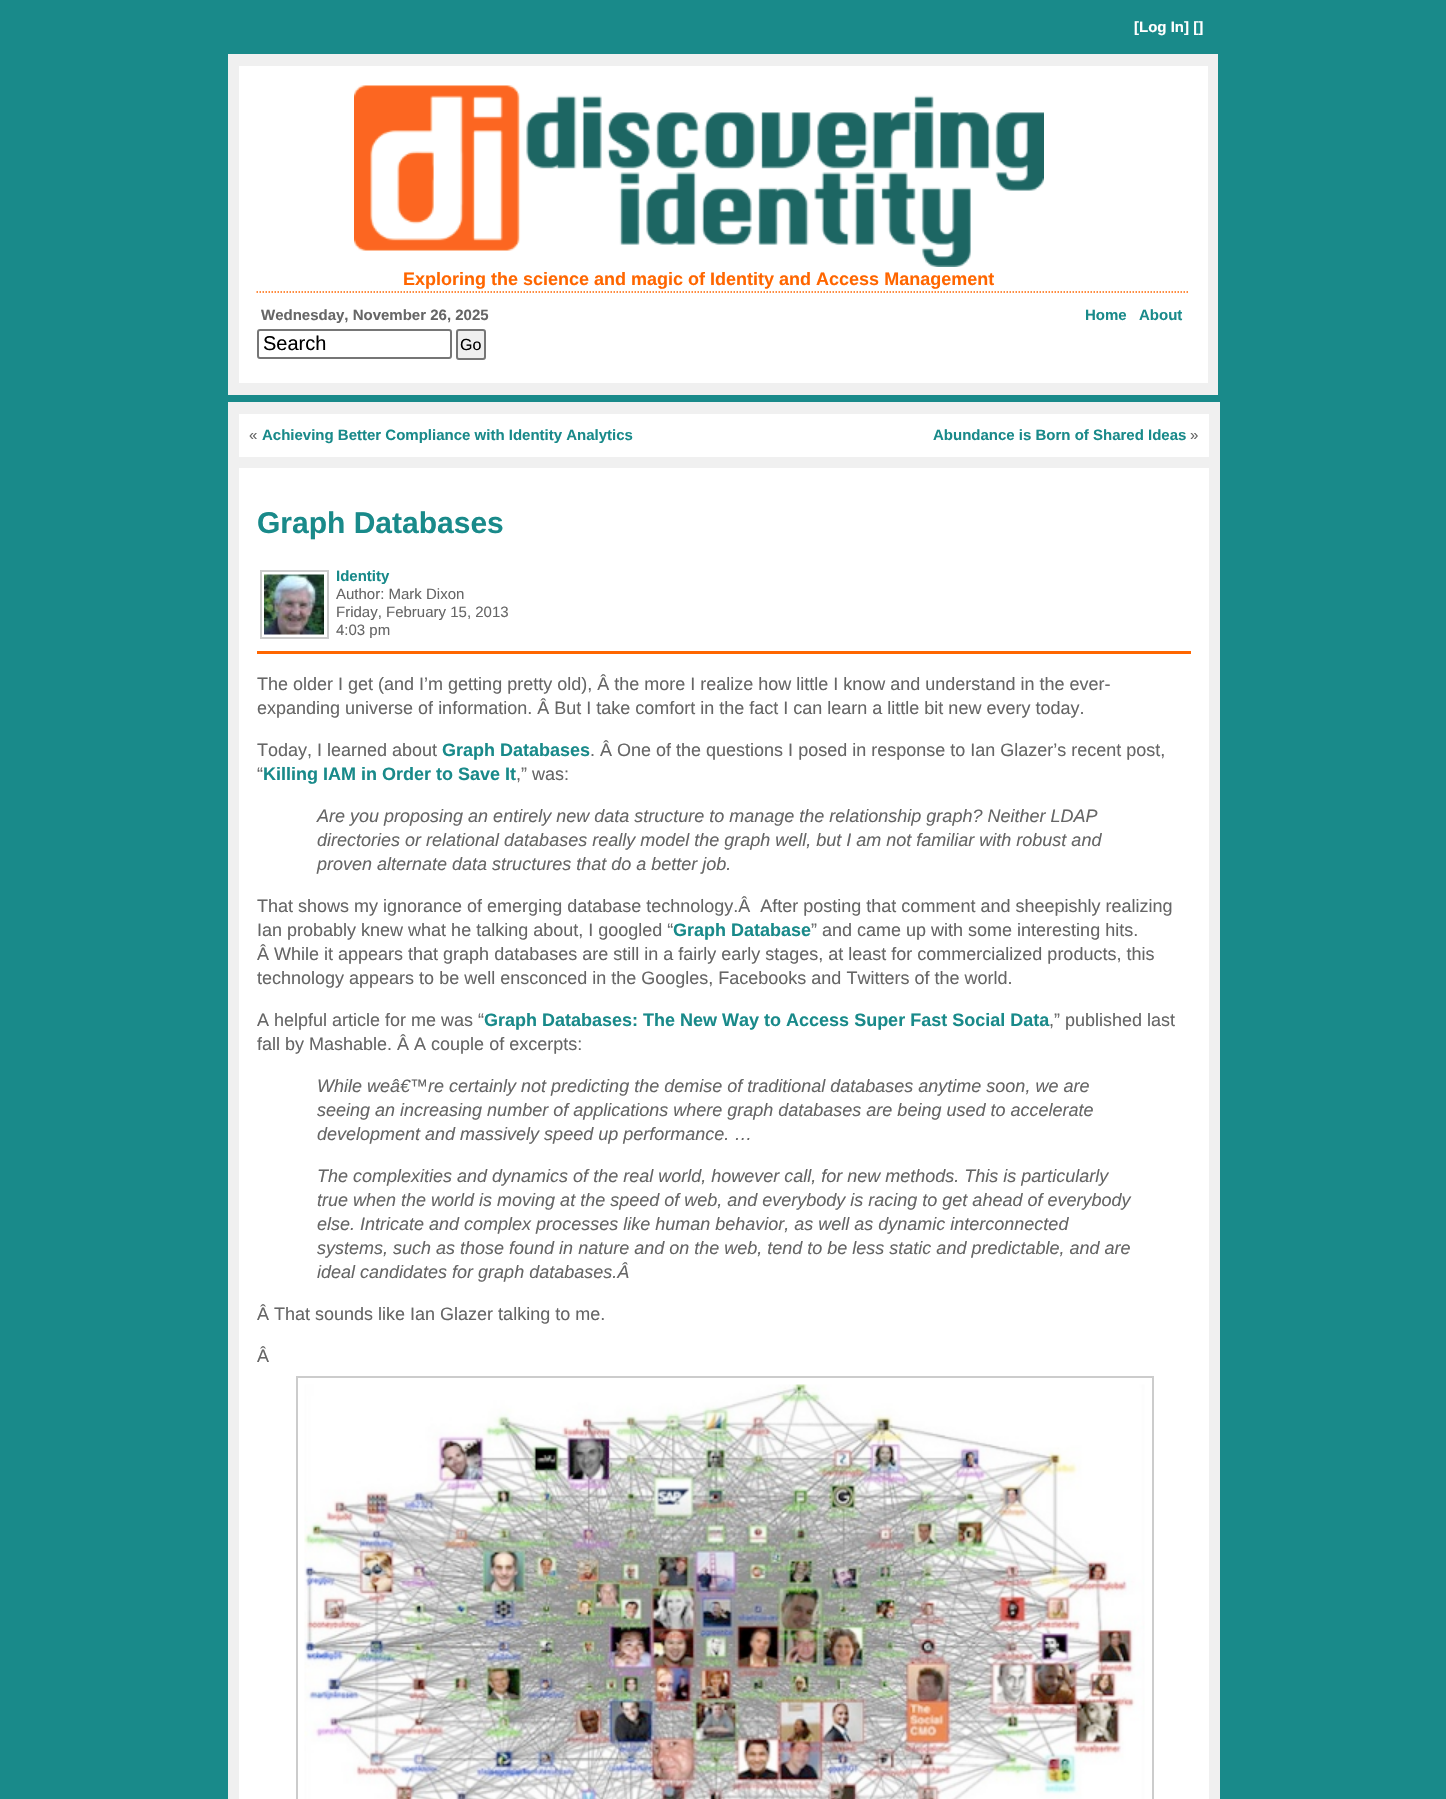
#include "include/core/SkBlurTypes.h"
#include "include/core/SkCanvas.h"
#include "include/core/SkData.h"
#include "include/core/SkFont.h"
#include "include/core/SkFontMgr.h"
#include "include/core/SkImage.h"
#include "include/core/SkMaskFilter.h"
#include "include/core/SkPaint.h"
#include "include/core/SkPathBuilder.h"
#include "include/core/SkTextBlob.h"
#include "include/effects/SkDashPathEffect.h"
#include "include/effects/SkGradientShader.h"
#include "include/utils/SkParsePath.h"

extern sk_sp<SkFontMgr> fontMgr;

void draw(SkCanvas* canvas) {
  SkPaint p;
  p.setAntiAlias(true);
  canvas->clear(SkColorSetRGB(25, 138, 138));
  p.setColor(SkColorSetRGB(240, 240, 240));
  canvas->drawRect(SkRect::MakeLTRB(228, 54, 1218, 62), p);
  canvas->drawRect(SkRect::MakeLTRB(228, 62, 1218, 395), p);
  p.setColor(SK_ColorWHITE);
  canvas->drawRect(SkRect::MakeLTRB(239, 66, 1208, 74), p);
  canvas->drawRect(SkRect::MakeLTRB(239, 74, 1208, 383), p);
  canvas->drawImageRect(SkImages::DeferredFromEncodedData(SkData::MakeFromFileName("images/1.png")), SkRect::MakeLTRB(354, 85, 1044, 267), SkSamplingOptions());
  p.setStyle(SkPaint::kStroke_Style);
  p.setStrokeWidth(1.5f);
  p.setColor(SkColorSetRGB(255, 102, 0));
  p.setPathEffect(SkDashPathEffect::Make({{1.5f, 1.5f}}, 0));
  canvas->drawPath(SkPathBuilder().moveTo(256.5f, 292).lineTo(1189.5f, 292).detach(), p);
  p.setPathEffect(nullptr);
  p.setStrokeWidth(2);
  p.setColor(SkColorSetRGB(118, 118, 118));
  canvas->drawRoundRect(SkRect::MakeLTRB(258, 330, 451, 358), 2, 2, p);
  p.setStyle(SkPaint::kFill_Style);
  p.setColor(SkColorSetRGB(239, 239, 239));
  canvas->drawRoundRect(SkRect::MakeLTRB(457, 330, 485, 359), 2, 2, p);
  p.setStyle(SkPaint::kStroke_Style);
  p.setColor(SkColorSetRGB(118, 118, 118));
  canvas->drawRoundRect(SkRect::MakeLTRB(457, 330, 485, 359), 2, 2, p);
  p.setStyle(SkPaint::kFill_Style);
  p.setColor(SkColorSetRGB(240, 240, 240));
  canvas->drawRect(SkRect::MakeLTRB(228, 402, 1220, 410), p);
  canvas->drawRect(SkRect::MakeLTRB(228, 410, 1220, 1799), p);
  p.setColor(SK_ColorWHITE);
  canvas->drawRect(SkRect::MakeLTRB(239, 414, 1209, 422), p);
  canvas->drawRect(SkRect::MakeLTRB(239, 422, 1209, 457), p);
  canvas->drawRect(SkRect::MakeLTRB(239, 468, 1209, 476), p);
  canvas->drawRect(SkRect::MakeLTRB(239, 476, 1209, 1799), p);
  p.setStyle(SkPaint::kStroke_Style);
  p.setColor(SkColorSetRGB(204, 204, 204));
  canvas->drawRect(SkRect::MakeLTRB(261, 571, 328, 638), p);
  canvas->drawImageRect(SkImages::DeferredFromEncodedData(SkData::MakeFromFileName("images/2.png")), SkRect::MakeLTRB(264, 574, 324, 635), SkSamplingOptions());
  p.setStyle(SkPaint::kFill_Style);
  p.setColor(SkColorSetRGB(255, 102, 0));
  canvas->drawRect(SkRect::MakeLTRB(257, 651, 1191, 654), p);
  p.setStyle(SkPaint::kStroke_Style);
  p.setColor(SkColorSetRGB(204, 204, 204));
  canvas->drawRect(SkRect::MakeLTRB(297, 1377, 1153, 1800), p);
  canvas->drawImageRect(SkImages::DeferredFromEncodedData(SkData::MakeFromFileName("images/3.png")), SkRect::MakeLTRB(304, 1384, 1145, 1799), SkSamplingOptions());
  SkFont font1(fontMgr->matchFamilyStyle("Liberation Sans", SkFontStyle::Bold()), 15);
  font1.setSubpixel(true);
  p.setStyle(SkPaint::kFill_Style);
  p.setColor(SK_ColorWHITE);
  canvas->drawString("[Log In] []", 1134, 32, font1, p);
  SkFont font2(fontMgr->matchFamilyStyle("Liberation Sans", SkFontStyle::Bold()), 18);
  font2.setSubpixel(true);
  p.setColor(SkColorSetRGB(255, 102, 0));
  canvas->drawString("Exploring the science and magic of Identity and Access Management", 403, 285, font2, p);
  p.setColor(SkColorSetRGB(102, 102, 102));
  canvas->drawString("Wednesday, November 26, 2025", 261, 320, font1, p);
  SkFont font3(fontMgr->matchFamilyStyle("Liberation Sans", SkFontStyle::Normal()), 20);
  font3.setSubpixel(true);
  p.setColor(SK_ColorBLACK);
  canvas->drawString("Search", 263, 350, font3, p);
  SkFont font4(fontMgr->matchFamilyStyle("Liberation Sans", SkFontStyle::Normal()), 16);
  font4.setSubpixel(true);
  canvas->drawString("Go", 460, 350, font4, p);
  p.setColor(SkColorSetRGB(25, 138, 138));
  canvas->drawString("Home", 1085, 320, font1, p);
  canvas->drawString("About", 1139, 320, font1, p);
  SkFont font5(fontMgr->matchFamilyStyle("Liberation Sans", SkFontStyle::Normal()), 15);
  font5.setSubpixel(true);
  p.setColor(SkColorSetRGB(102, 102, 102));
  canvas->drawString("«", 249, 440, font5, p);
  p.setColor(SkColorSetRGB(25, 138, 138));
  canvas->drawString("Achieving Better Compliance with Identity Analytics", 262, 440, font1, p);
  canvas->drawString("Abundance is Born of Shared Ideas", 933, 440, font1, p);
  p.setColor(SkColorSetRGB(102, 102, 102));
  canvas->drawString("»", 1190, 440, font5, p);
  SkFont font6(fontMgr->matchFamilyStyle("Liberation Sans", SkFontStyle::Bold()), 30);
  font6.setSubpixel(true);
  p.setColor(SkColorSetRGB(25, 138, 138));
  canvas->drawString("Graph Databases", 257, 533, font6, p);
  canvas->drawString("Identity", 336, 581, font1, p);
  p.setColor(SkColorSetRGB(102, 102, 102));
  canvas->drawString("Author: Mark Dixon", 336, 599, font5, p);
  canvas->drawString("Friday, February 15, 2013", 336, 617, font5, p);
  canvas->drawString("4:03 pm", 336, 635, font5, p);
  SkFont font7(fontMgr->matchFamilyStyle("Liberation Sans", SkFontStyle::Normal()), 18);
  font7.setSubpixel(true);
  canvas->drawString("The older I get (and I’m getting pretty old), Â the more I realize how little I know and understand in the ever-", 257, 690, font7, p);
  canvas->drawString("expanding universe of information. Â But I take comfort in the fact I can learn a little bit new every today.", 257, 714, font7, p);
  canvas->drawString("Today, I learned about", 257, 756, font7, p);
  p.setColor(SkColorSetRGB(25, 138, 138));
  canvas->drawString("Graph Databases", 442, 756, font2, p);
  p.setColor(SkColorSetRGB(102, 102, 102));
  canvas->drawString(". Â One of the questions I posed in response to Ian Glazer’s recent post,", 590, 756, font7, p);
  canvas->drawString("“", 257, 780, font7, p);
  p.setColor(SkColorSetRGB(25, 138, 138));
  canvas->drawString("Killing IAM in Order to Save It", 263, 780, font2, p);
  p.setColor(SkColorSetRGB(102, 102, 102));
  canvas->drawString(",” was:", 516, 780, font7, p);
  SkFont font8(fontMgr->matchFamilyStyle("Liberation Sans", SkFontStyle::Italic()), 18);
  font8.setSubpixel(true);
  canvas->drawString("Are you proposing an entirely new data structure to manage the relationship graph? Neither LDAP", 317, 822, font8, p);
  canvas->drawString("directories or relational databases really model the graph well, but I am not familiar with robust and", 317, 846, font8, p);
  canvas->drawString("proven alternate data structures that do a better job.", 317, 870, font8, p);
  canvas->drawString("That shows my ignorance of emerging database technology.Â  After posting that comment and sheepishly realizing", 257, 912, font7, p);
  canvas->drawString("Ian probably knew what he talking about, I googled “", 257, 936, font7, p);
  p.setColor(SkColorSetRGB(25, 138, 138));
  canvas->drawString("Graph Database", 673, 936, font2, p);
  p.setColor(SkColorSetRGB(102, 102, 102));
  canvas->drawString("” and came up with some interesting hits.", 811, 936, font7, p);
  canvas->drawString("Â While it appears that graph databases are still in a fairly early stages, at least for commercialized products, this", 257, 960, font7, p);
  canvas->drawString("technology appears to be well ensconced in the Googles, Facebooks and Twitters of the world.", 257, 984, font7, p);
  canvas->drawString("A helpful article for me was “", 257, 1026, font7, p);
  p.setColor(SkColorSetRGB(25, 138, 138));
  canvas->drawString("Graph Databases: The New Way to Access Super Fast Social Data", 484, 1026, font2, p);
  p.setColor(SkColorSetRGB(102, 102, 102));
  canvas->drawString(",” published last", 1049, 1026, font7, p);
  canvas->drawString("fall by Mashable. Â A couple of excerpts:", 257, 1050, font7, p);
  canvas->drawString("While weâ€™re certainly not predicting the demise of traditional databases anytime soon, we are", 317, 1092, font8, p);
  canvas->drawString("seeing an increasing number of applications where graph databases are being used to accelerate", 317, 1116, font8, p);
  canvas->drawString("development and massively speed up performance. …", 317, 1140, font8, p);
  canvas->drawString("The complexities and dynamics of the real world, however call, for new methods. This is particularly", 317, 1182, font8, p);
  canvas->drawString("true when the world is moving at the speed of web, and everybody is racing to get ahead of everybody", 317, 1206, font8, p);
  canvas->drawString("else. Intricate and complex processes like human behavior, as well as dynamic interconnected", 317, 1230, font8, p);
  canvas->drawString("systems, such as those found in nature and on the web, tend to be less static and predictable, and are", 317, 1254, font8, p);
  canvas->drawString("ideal candidates for graph databases.Â", 317, 1278, font8, p);
  canvas->drawString("Â That sounds like Ian Glazer talking to me.", 257, 1320, font7, p);
  canvas->drawString("Â", 257, 1362, font7, p);
}
